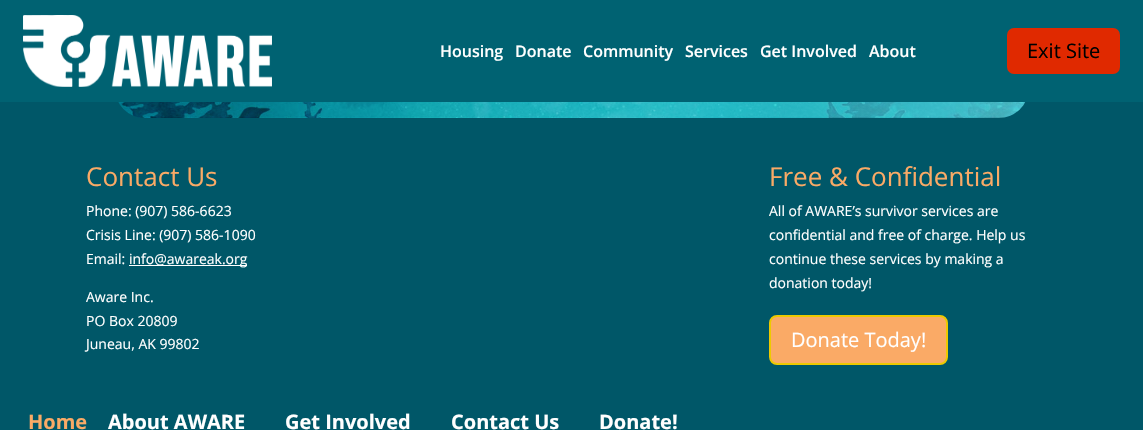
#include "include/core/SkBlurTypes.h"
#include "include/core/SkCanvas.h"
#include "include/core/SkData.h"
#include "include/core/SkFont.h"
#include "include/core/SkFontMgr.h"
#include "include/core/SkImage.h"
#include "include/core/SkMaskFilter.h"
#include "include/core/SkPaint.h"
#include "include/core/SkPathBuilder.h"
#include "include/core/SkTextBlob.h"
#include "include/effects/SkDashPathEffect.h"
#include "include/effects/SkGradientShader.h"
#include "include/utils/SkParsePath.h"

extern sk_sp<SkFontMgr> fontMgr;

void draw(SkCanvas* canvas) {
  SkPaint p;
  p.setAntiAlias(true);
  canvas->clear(SkColorSetRGB(0, 87, 104));
  p.setColor(SkColorSetRGB(0, 98, 114));
  canvas->drawRect(SkRect::MakeLTRB(0, 0, 1143, 102), p);
  canvas->drawImageRect(SkImages::DeferredFromEncodedData(SkData::MakeFromFileName("images/1.png")), SkRect::MakeLTRB(23, 15, 272, 87), SkSamplingOptions());
  p.setColor(SkColorSetRGB(224, 41, 0));
  canvas->drawRoundRect(SkRect::MakeLTRB(1007, 28, 1120, 74), 7, 7, p);
  canvas->drawImageRect(SkImages::DeferredFromEncodedData(SkData::MakeFromFileName("images/2.png")), SkRect::MakeLTRB(118, 102, 1026, 118), SkSamplingOptions());
  p.setColor(SK_ColorWHITE);
  canvas->drawRect(SkRect::MakeLTRB(129, 265, 247, 266), p);
  p.setColor(SkColorSetRGB(250, 170, 102));
  canvas->drawRoundRect(SkRect::MakeLTRB(770, 316, 947, 364), 7, 7, p);
  p.setStyle(SkPaint::kStroke_Style);
  p.setStrokeWidth(2);
  p.setColor(SkColorSetRGB(237, 201, 0));
  canvas->drawRoundRect(SkRect::MakeLTRB(770, 316, 947, 364), 7, 7, p);
  SkFont font1(fontMgr->matchFamilyStyle("Open Sans", SkFontStyle(600, SkFontStyle::kNormal_Width, SkFontStyle::kUpright_Slant)), 16);
  font1.setSubpixel(true);
  p.setStyle(SkPaint::kFill_Style);
  p.setColor(SK_ColorWHITE);
  canvas->drawString("Housing", 440, 57, font1, p);
  canvas->drawString("Donate", 515, 57, font1, p);
  canvas->drawString("Community", 583, 57, font1, p);
  canvas->drawString("Services", 685, 57, font1, p);
  canvas->drawString("Get Involved", 760, 57, font1, p);
  canvas->drawString("About", 869, 57, font1, p);
  SkFont font2(fontMgr->matchFamilyStyle("Open Sans", SkFontStyle::Normal()), 20);
  font2.setSubpixel(true);
  p.setColor(SK_ColorBLACK);
  canvas->drawString("Exit Site", 1027, 58, font2, p);
  SkFont font3(fontMgr->matchFamilyStyle("Open Sans", SkFontStyle::Normal()), 26);
  font3.setSubpixel(true);
  p.setColor(SkColorSetRGB(250, 170, 102));
  canvas->drawString("Contact Us", 86, 186, font3, p);
  SkFont font4(fontMgr->matchFamilyStyle("Open Sans", SkFontStyle::Normal()), 14);
  font4.setSubpixel(true);
  p.setColor(SK_ColorWHITE);
  canvas->drawString("Phone: (907) 586-6623", 86, 216, font4, p);
  canvas->drawString("Crisis Line: (907) 586-1090", 86, 240, font4, p);
  canvas->drawString("Email:", 86, 264, font4, p);
  canvas->drawString("info@awareak.org", 129, 264, font4, p);
  canvas->drawString("Aware Inc.", 86, 302, font4, p);
  canvas->drawString("PO Box 20809", 86, 326, font4, p);
  canvas->drawString("Juneau, AK 99802", 86, 349, font4, p);
  p.setColor(SkColorSetRGB(250, 170, 102));
  canvas->drawString("Free & Confidential", 769, 186, font3, p);
  p.setColor(SK_ColorWHITE);
  canvas->drawString("All of AWARE’s survivor services are", 769, 216, font4, p);
  canvas->drawString("confidential and free of charge. Help us", 769, 240, font4, p);
  canvas->drawString("continue these services by making a", 769, 264, font4, p);
  canvas->drawString("donation today!", 769, 288, font4, p);
  canvas->drawString("Donate Today!", 791, 347, font2, p);
  SkFont font5(fontMgr->matchFamilyStyle("Open Sans", SkFontStyle::Bold()), 20);
  font5.setSubpixel(true);
  p.setColor(SkColorSetRGB(250, 170, 102));
  canvas->drawString("Home", 28, 429, font5, p);
  p.setColor(SK_ColorWHITE);
  canvas->drawString("About AWARE", 108, 429, font5, p);
  canvas->drawString("Get Involved", 285, 429, font5, p);
  canvas->drawString("Contact Us", 451, 429, font5, p);
  canvas->drawString("Donate!", 599, 429, font5, p);
}
